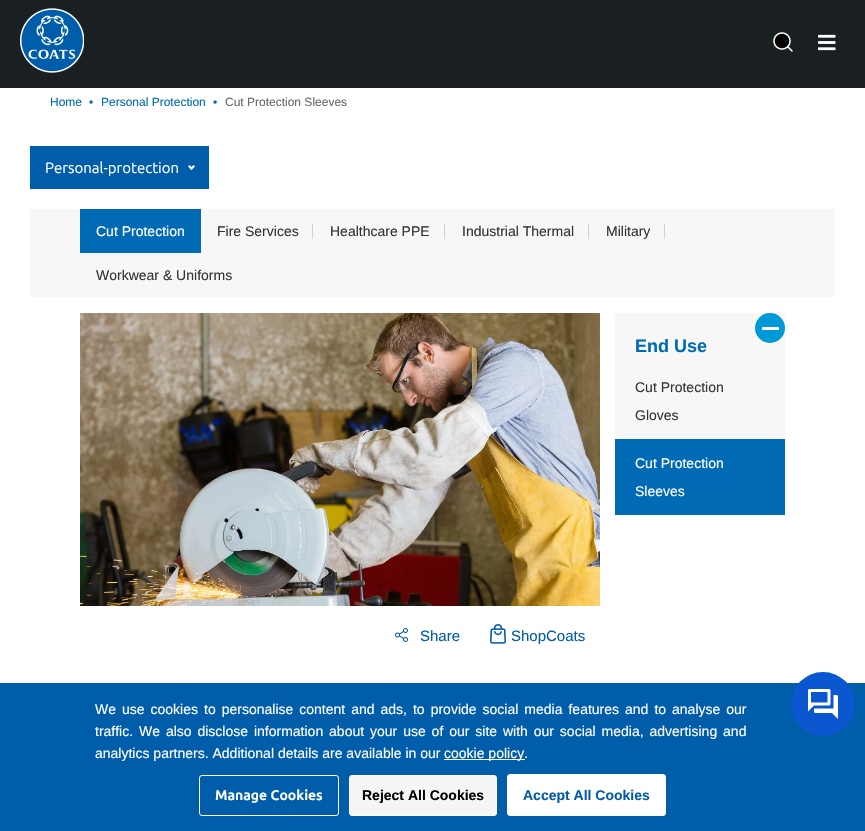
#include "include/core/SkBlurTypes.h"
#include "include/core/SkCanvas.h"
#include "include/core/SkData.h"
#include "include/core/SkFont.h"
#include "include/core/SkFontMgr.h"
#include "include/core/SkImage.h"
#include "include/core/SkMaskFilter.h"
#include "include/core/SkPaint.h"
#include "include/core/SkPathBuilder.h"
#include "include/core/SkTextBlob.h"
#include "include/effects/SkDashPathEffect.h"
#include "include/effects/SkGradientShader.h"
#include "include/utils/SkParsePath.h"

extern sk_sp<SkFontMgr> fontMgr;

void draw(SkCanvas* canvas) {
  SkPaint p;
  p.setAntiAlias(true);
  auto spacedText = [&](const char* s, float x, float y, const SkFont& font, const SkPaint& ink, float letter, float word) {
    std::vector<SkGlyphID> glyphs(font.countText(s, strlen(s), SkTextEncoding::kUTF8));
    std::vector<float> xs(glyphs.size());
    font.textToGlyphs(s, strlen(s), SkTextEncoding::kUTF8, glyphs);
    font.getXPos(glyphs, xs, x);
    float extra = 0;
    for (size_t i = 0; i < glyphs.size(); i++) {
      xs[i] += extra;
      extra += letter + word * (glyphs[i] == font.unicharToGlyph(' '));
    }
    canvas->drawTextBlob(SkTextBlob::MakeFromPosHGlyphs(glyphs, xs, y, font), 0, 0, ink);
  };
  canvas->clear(SK_ColorWHITE);
  p.setColor(SkColorSetRGB(26, 31, 34));
  canvas->drawRect(SkRect::MakeLTRB(0, 0, 865, 88), p);
  canvas->drawImageRect(SkImages::DeferredFromEncodedData(SkData::MakeFromFileName("images/1.png")), SkRect::MakeLTRB(20, 8, 84, 73), SkSamplingOptions());
  canvas->drawImageRect(SkImages::DeferredFromEncodedData(SkData::MakeFromFileName("images/2.png")), SkRect::MakeLTRB(773, 32, 793, 52), SkSamplingOptions());
  canvas->drawImageRect(SkImages::DeferredFromEncodedData(SkData::MakeFromFileName("images/3.png")), SkRect::MakeLTRB(818, 34, 836, 51), SkSamplingOptions());
  p.setColor(SkColorSetRGB(0, 93, 169));
  canvas->drawRect(SkRect::MakeLTRB(30, 146, 209, 189), p);
  p.setColor(SK_ColorWHITE);
  canvas->drawPath(SkPathBuilder().moveTo(193.5f, 165).lineTo(195, 166.5f).lineTo(191.5f, 170).lineTo(190, 168.5f).close().detach(), p);
  canvas->drawPath(SkPathBuilder().moveTo(189.5f, 165).lineTo(193, 168.5f).lineTo(191.5f, 170).lineTo(188, 166.5f).close().detach(), p);
  p.setColor(SkColorSetRGB(247, 247, 247));
  canvas->drawRect(SkRect::MakeLTRB(30, 209, 835, 297), p);
  p.setColor(SkColorSetRGB(0, 106, 181));
  canvas->drawRect(SkRect::MakeLTRB(80, 209, 201, 253), p);
  p.setColor(SkColorSetRGB(209, 209, 209));
  canvas->drawRect(SkRect::MakeLTRB(312, 224, 313, 239), p);
  canvas->drawRect(SkRect::MakeLTRB(444, 224, 445, 239), p);
  canvas->drawRect(SkRect::MakeLTRB(588, 224, 589, 239), p);
  canvas->drawRect(SkRect::MakeLTRB(664, 224, 665, 239), p);
  p.setColor(SkColorSetRGB(247, 247, 247));
  canvas->drawRect(SkRect::MakeLTRB(615, 313, 785, 439), p);
  p.setColor(SkColorSetRGB(0, 153, 215));
  canvas->drawCircle(770, 328, 15, p);
  p.setColor(SK_ColorWHITE);
  canvas->drawRect(SkRect::MakeLTRB(762, 327, 779, 330), p);
  p.setColor(SkColorSetRGB(0, 106, 181));
  canvas->drawRect(SkRect::MakeLTRB(615, 439, 785, 515), p);
  canvas->drawImageRect(SkImages::DeferredFromEncodedData(SkData::MakeFromFileName("images/4.png")), SkRect::MakeLTRB(80, 313, 600, 606), SkSamplingOptions());
  canvas->drawImageRect(SkImages::DeferredFromEncodedData(SkData::MakeFromFileName("images/5.png")), SkRect::MakeLTRB(395, 628, 408, 642), SkSamplingOptions());
  canvas->drawImageRect(SkImages::DeferredFromEncodedData(SkData::MakeFromFileName("images/6.png")), SkRect::MakeLTRB(490, 624, 506, 644), SkSamplingOptions());
  p.setColor(SkColorSetRGB(0, 93, 169));
  canvas->drawRect(SkRect::MakeLTRB(0, 683, 865, 831), p);
  p.setColor(SK_ColorWHITE);
  canvas->drawRect(SkRect::MakeLTRB(444, 759, 525, 760), p);
  p.setStyle(SkPaint::kStroke_Style);
  p.setStrokeWidth(1);
  canvas->drawRoundRect(SkRect::MakeLTRB(199.5f, 775.5f, 338.5f, 815.5f), 2.5f, 2.5f, p);
  p.setStyle(SkPaint::kFill_Style);
  p.setColor(SkColorSetRGB(245, 245, 245));
  canvas->drawRoundRect(SkRect::MakeLTRB(349.5f, 775.5f, 496.5f, 815.5f), 2.5f, 2.5f, p);
  p.setStyle(SkPaint::kStroke_Style);
  p.setColor(SK_ColorWHITE);
  canvas->drawRoundRect(SkRect::MakeLTRB(349.5f, 775.5f, 496.5f, 815.5f), 2.5f, 2.5f, p);
  p.setStyle(SkPaint::kFill_Style);
  canvas->drawRoundRect(SkRect::MakeLTRB(507.5f, 774.5f, 665.5f, 815.5f), 2.5f, 2.5f, p);
  p.setStyle(SkPaint::kStroke_Style);
  canvas->drawRoundRect(SkRect::MakeLTRB(507.5f, 774.5f, 665.5f, 815.5f), 2.5f, 2.5f, p);
  p.setStyle(SkPaint::kFill_Style);
  p.setColor(SkColorSetRGB(11, 87, 208));
  canvas->drawCircle(823, 704, 32, p);
  canvas->drawImageRect(SkImages::DeferredFromEncodedData(SkData::MakeFromFileName("images/7.png")), SkRect::MakeLTRB(808, 689, 838, 719), SkSamplingOptions());
  SkFont font1(fontMgr->matchFamilyStyle("Liberation Sans", SkFontStyle::Normal()), 12);
  font1.setSubpixel(true);
  p.setColor(SkColorSetRGB(0, 106, 181));
  canvas->drawString("Home", 50, 106, font1, p);
  canvas->drawString("•", 89, 106, font1, p);
  canvas->drawString("Personal Protection", 101, 106, font1, p);
  canvas->drawString("•", 213, 106, font1, p);
  p.setColor(SkColorSetRGB(102, 102, 102));
  canvas->drawString("Cut Protection Sleeves", 225, 106, font1, p);
  SkFont font2(fontMgr->matchFamilyStyle("Ubuntu", SkFontStyle::Normal()), 15);
  font2.setSubpixel(true);
  p.setColor(SK_ColorWHITE);
  canvas->drawString("Personal-protection", 45, 173, font2, p);
  SkFont font3(fontMgr->matchFamilyStyle("Liberation Sans", SkFontStyle::Normal()), 14);
  font3.setSubpixel(true);
  canvas->drawString("Cut Protection", 96, 236, font3, p);
  p.setColor(SkColorSetRGB(51, 51, 51));
  canvas->drawString("Fire Services", 217, 236, font3, p);
  canvas->drawString("Healthcare PPE", 330, 236, font3, p);
  canvas->drawString("Industrial Thermal", 462, 236, font3, p);
  canvas->drawString("Military", 606, 236, font3, p);
  canvas->drawString("Workwear & Uniforms", 96, 280, font3, p);
  SkFont font4(fontMgr->matchFamilyStyle("Liberation Sans", SkFontStyle::Bold()), 18);
  font4.setSubpixel(true);
  p.setColor(SkColorSetRGB(0, 106, 181));
  canvas->drawString("End Use", 635, 352, font4, p);
  p.setColor(SkColorSetRGB(51, 51, 51));
  canvas->drawString("Cut Protection", 635, 392, font3, p);
  canvas->drawString("Gloves", 635, 420, font3, p);
  p.setColor(SK_ColorWHITE);
  canvas->drawString("Cut Protection", 635, 468, font3, p);
  canvas->drawString("Sleeves", 635, 496, font3, p);
  SkFont font5(fontMgr->matchFamilyStyle("Liberation Sans", SkFontStyle::Normal()), 15);
  font5.setSubpixel(true);
  p.setColor(SkColorSetRGB(0, 93, 169));
  canvas->drawString("Share", 420, 641, font5, p);
  canvas->drawString("ShopCoats", 511, 641, font5, p);
  p.setColor(SK_ColorWHITE);
  spacedText("We use cookies to personalise content and ads, to provide social media features and to analyse our", 95, 714, font3, p, 0, 2.1f);
  spacedText("traffic. We also disclose information about your use of our site with our social media, advertising and", 95, 736, font3, p, 0, 2);
  canvas->drawString("analytics partners. Additional details are available in our", 95, 758, font3, p);
  canvas->drawString("cookie policy.", 444, 758, font3, p);
  SkFont font6(fontMgr->matchFamilyStyle("Ubuntu", SkFontStyle::Bold()), 14);
  font6.setSubpixel(true);
  canvas->drawString("Manage Cookies", 215, 800, font6, p);
  SkFont font7(fontMgr->matchFamilyStyle("Liberation Sans", SkFontStyle::Bold()), 14);
  font7.setSubpixel(true);
  p.setColor(SK_ColorBLACK);
  canvas->drawString("Reject All Cookies", 362, 800, font7, p);
  p.setColor(SkColorSetRGB(0, 93, 169));
  canvas->drawString("Accept All Cookies", 523, 800, font7, p);
}
